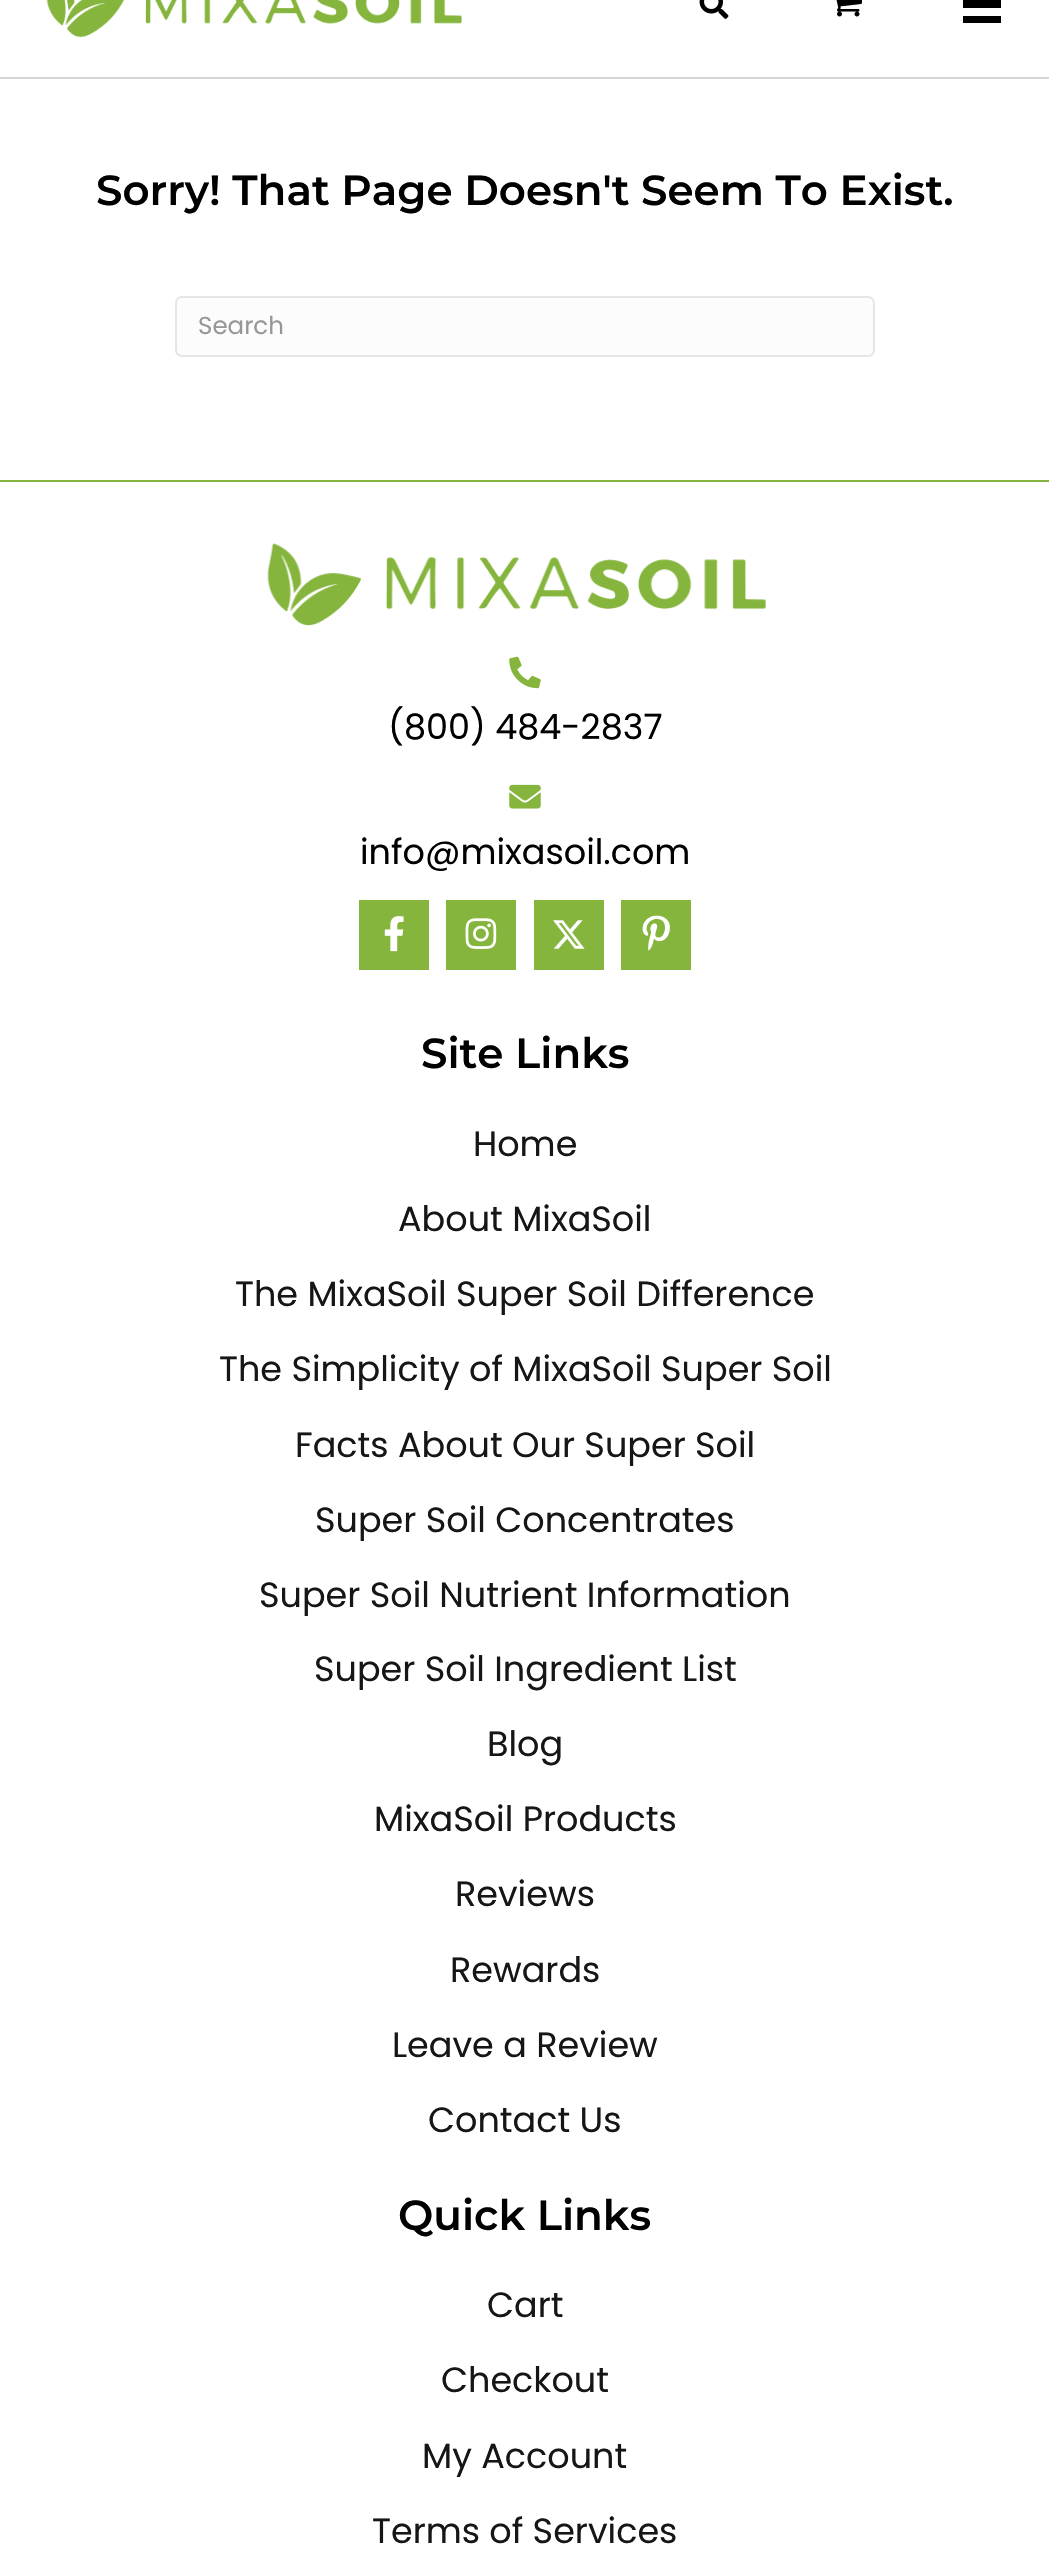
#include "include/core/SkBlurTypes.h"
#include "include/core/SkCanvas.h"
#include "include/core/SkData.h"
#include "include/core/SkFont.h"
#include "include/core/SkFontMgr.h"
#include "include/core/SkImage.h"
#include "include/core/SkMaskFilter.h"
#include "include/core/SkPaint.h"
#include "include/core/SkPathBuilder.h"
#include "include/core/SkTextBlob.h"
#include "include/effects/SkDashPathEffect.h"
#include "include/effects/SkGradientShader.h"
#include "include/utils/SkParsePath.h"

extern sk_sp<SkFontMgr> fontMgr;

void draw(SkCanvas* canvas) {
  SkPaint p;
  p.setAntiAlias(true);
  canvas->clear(SK_ColorWHITE);
  p.setColor(SkColorSetRGB(214, 214, 214));
  canvas->drawRect(SkRect::MakeLTRB(0, 77, 1049, 79), p);
  canvas->drawImageRect(SkImages::DeferredFromEncodedData(SkData::MakeFromFileName("images/1.png")), SkRect::MakeLTRB(46, 0, 462, 38), SkSamplingOptions());
  canvas->drawImageRect(SkImages::DeferredFromEncodedData(SkData::MakeFromFileName("images/2.png")), SkRect::MakeLTRB(699, 0, 729, 19), SkSamplingOptions());
  canvas->drawImageRect(SkImages::DeferredFromEncodedData(SkData::MakeFromFileName("images/3.png")), SkRect::MakeLTRB(836, 0, 862, 17), SkSamplingOptions());
  p.setColor(SK_ColorBLACK);
  canvas->drawRect(SkRect::MakeLTRB(963, 0, 1001, 8), p);
  canvas->drawRect(SkRect::MakeLTRB(963, 16, 1001, 23), p);
  p.setColor(SkColorSetRGB(252, 252, 252));
  canvas->drawRoundRect(SkRect::MakeLTRB(176, 297, 874, 356), 6, 6, p);
  p.setStyle(SkPaint::kStroke_Style);
  p.setStrokeWidth(2);
  p.setColor(SkColorSetRGB(230, 230, 230));
  canvas->drawRoundRect(SkRect::MakeLTRB(176, 297, 874, 356), 6, 6, p);
  p.setStyle(SkPaint::kFill_Style);
  p.setColor(SkColorSetRGB(133, 181, 61));
  canvas->drawRect(SkRect::MakeLTRB(0, 480, 1049, 482), p);
  canvas->drawImageRect(SkImages::DeferredFromEncodedData(SkData::MakeFromFileName("images/4.png")), SkRect::MakeLTRB(267, 543, 766, 626), SkSamplingOptions());
  canvas->drawImageRect(SkImages::DeferredFromEncodedData(SkData::MakeFromFileName("images/5.png")), SkRect::MakeLTRB(509, 656, 541, 689), SkSamplingOptions());
  canvas->drawImageRect(SkImages::DeferredFromEncodedData(SkData::MakeFromFileName("images/6.png")), SkRect::MakeLTRB(509, 784, 541, 809), SkSamplingOptions());
  canvas->drawRect(SkRect::MakeLTRB(359, 900, 429, 970), p);
  canvas->drawImageRect(SkImages::DeferredFromEncodedData(SkData::MakeFromFileName("images/7.png")), SkRect::MakeLTRB(384, 916, 404, 952), SkSamplingOptions());
  canvas->drawRect(SkRect::MakeLTRB(446, 900, 516, 970), p);
  canvas->drawImageRect(SkImages::DeferredFromEncodedData(SkData::MakeFromFileName("images/8.png")), SkRect::MakeLTRB(465, 918, 497, 949), SkSamplingOptions());
  canvas->drawRect(SkRect::MakeLTRB(534, 900, 604, 970), p);
  canvas->drawImageRect(SkImages::DeferredFromEncodedData(SkData::MakeFromFileName("images/9.png")), SkRect::MakeLTRB(553, 920, 585, 949), SkSamplingOptions());
  canvas->drawRect(SkRect::MakeLTRB(621, 900, 691, 970), p);
  canvas->drawImageRect(SkImages::DeferredFromEncodedData(SkData::MakeFromFileName("images/10.png")), SkRect::MakeLTRB(642, 915, 670, 951), SkSamplingOptions());
  SkFont font1(fontMgr->matchFamilyStyle("Montserrat", SkFontStyle(100, SkFontStyle::kNormal_Width, SkFontStyle::kUpright_Slant)), 42);
  font1.setSubpixel(true);
  p.setColor(SK_ColorBLACK);
  canvas->drawString("Sorry! That Page Doesn't Seem To Exist.", 96, 205, font1, p);
  SkFont font2(fontMgr->matchFamilyStyle("Poppins", SkFontStyle::Normal()), 24.5f);
  font2.setSubpixel(true);
  p.setColor(SkColorSetRGB(151, 151, 151));
  canvas->drawString("Search", 198, 334, font2, p);
  SkFont font3(fontMgr->matchFamilyStyle("Poppins", SkFontStyle::Normal()), 35);
  font3.setSubpixel(true);
  p.setColor(SK_ColorBLACK);
  canvas->drawString("(800) 484-2837", 388, 739, font3, p);
  canvas->drawString("info@mixasoil.com", 360, 864, font3, p);
  canvas->drawString("Site Links", 421, 1068, font1, p);
  p.setColor(SkColorSetRGB(22, 22, 22));
  canvas->drawString("Home", 473, 1156, font3, p);
  canvas->drawString("About MixaSoil", 398, 1231, font3, p);
  canvas->drawString("The MixaSoil Super Soil Difference", 235, 1306, font3, p);
  canvas->drawString("The Simplicity of MixaSoil Super Soil", 219, 1381, font3, p);
  canvas->drawString("Facts About Our Super Soil", 295, 1457, font3, p);
  canvas->drawString("Super Soil Concentrates", 315, 1532, font3, p);
  canvas->drawString("Super Soil Nutrient Information", 259, 1607, font3, p);
  canvas->drawString("Super Soil Ingredient List", 314, 1681, font3, p);
  canvas->drawString("Blog", 487, 1756, font3, p);
  canvas->drawString("MixaSoil Products", 374, 1831, font3, p);
  canvas->drawString("Reviews", 455, 1906, font3, p);
  canvas->drawString("Rewards", 450, 1982, font3, p);
  canvas->drawString("Leave a Review", 392, 2057, font3, p);
  canvas->drawString("Contact Us", 428, 2132, font3, p);
  p.setColor(SK_ColorBLACK);
  canvas->drawString("Quick Links", 398, 2230, font1, p);
  p.setColor(SkColorSetRGB(22, 22, 22));
  canvas->drawString("Cart", 487, 2317, font3, p);
  canvas->drawString("Checkout", 441, 2392, font3, p);
  canvas->drawString("My Account", 422, 2468, font3, p);
  canvas->drawString("Terms of Services", 372, 2543, font3, p);
}
